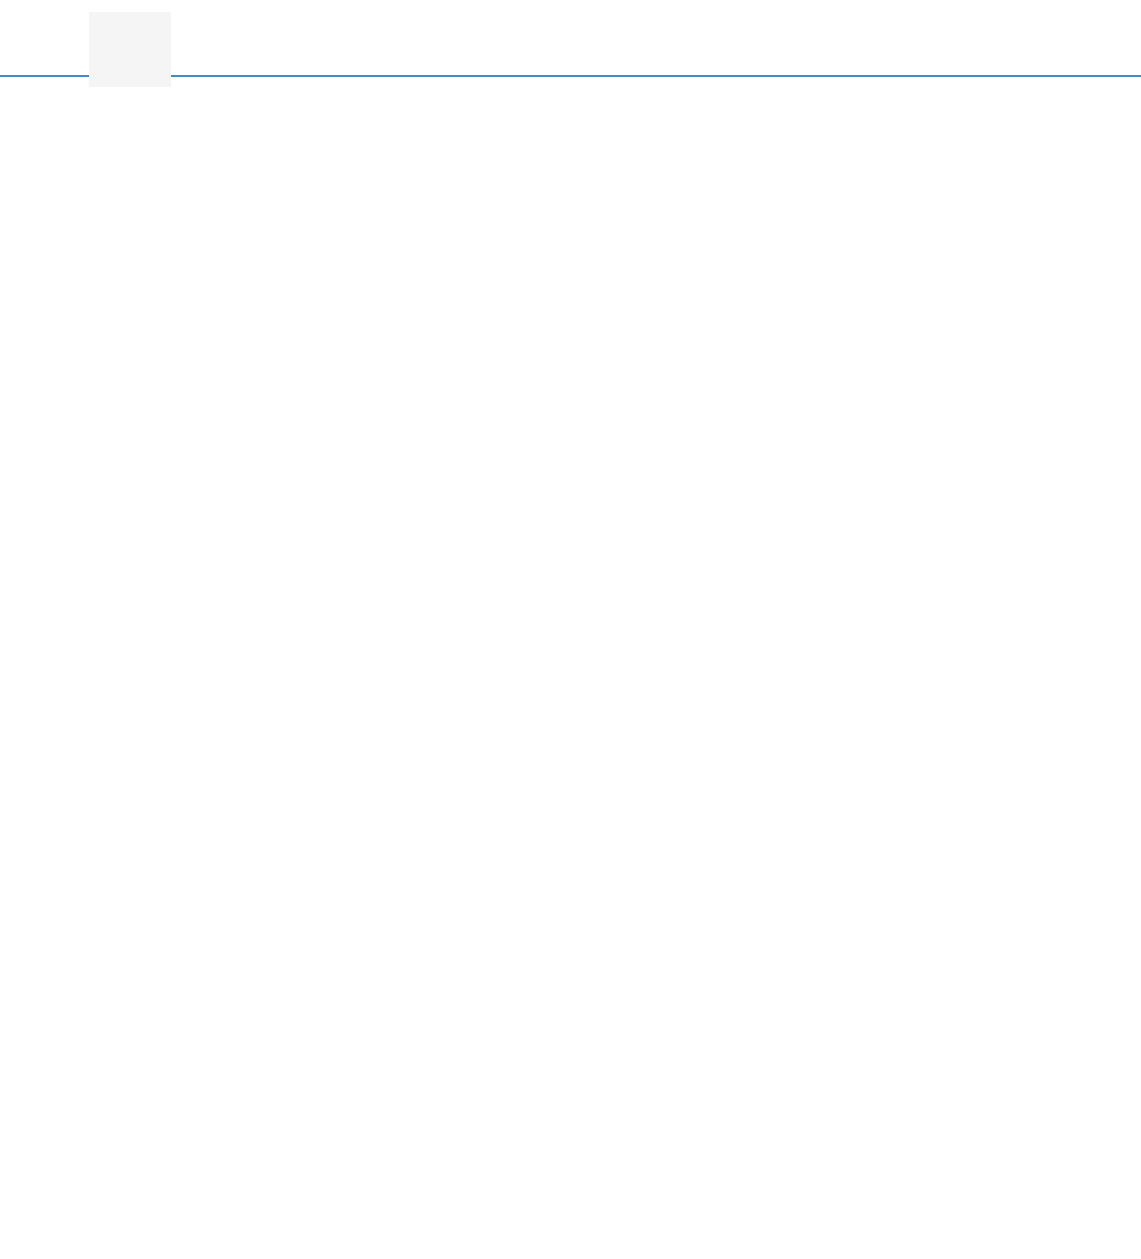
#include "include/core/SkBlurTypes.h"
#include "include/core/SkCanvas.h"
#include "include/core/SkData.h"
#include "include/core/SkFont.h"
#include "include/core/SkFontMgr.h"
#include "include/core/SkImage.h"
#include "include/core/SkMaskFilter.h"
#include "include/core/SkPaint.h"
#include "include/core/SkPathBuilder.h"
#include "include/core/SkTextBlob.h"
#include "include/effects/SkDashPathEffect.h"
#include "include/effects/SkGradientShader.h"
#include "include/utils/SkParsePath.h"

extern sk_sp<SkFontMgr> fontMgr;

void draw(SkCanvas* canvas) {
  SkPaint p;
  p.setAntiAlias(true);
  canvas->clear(SK_ColorWHITE);
  p.setColor(SkColorSetRGB(66, 139, 202));
  canvas->drawRect(SkRect::MakeLTRB(0, 75, 1141, 77), p);
  p.setColor(SkColorSetRGB(245, 245, 245));
  canvas->drawRect(SkRect::MakeLTRB(89, 12, 171, 87), p);
}
